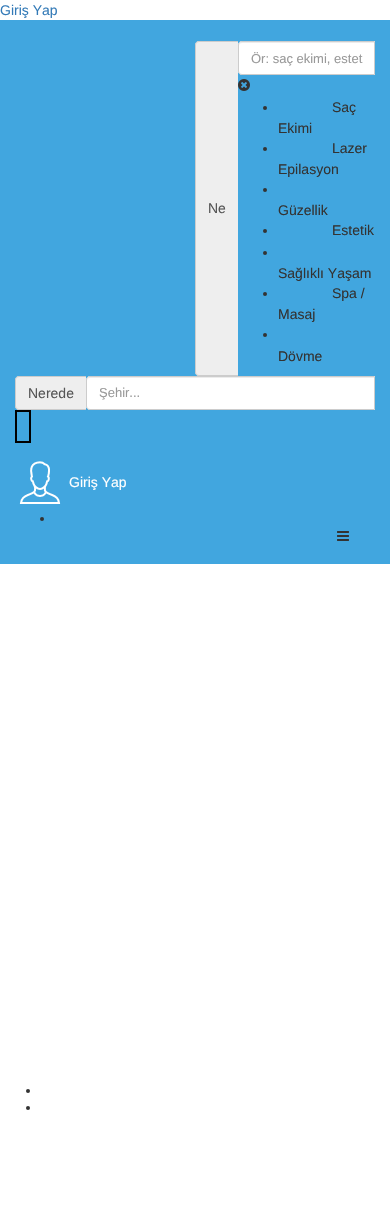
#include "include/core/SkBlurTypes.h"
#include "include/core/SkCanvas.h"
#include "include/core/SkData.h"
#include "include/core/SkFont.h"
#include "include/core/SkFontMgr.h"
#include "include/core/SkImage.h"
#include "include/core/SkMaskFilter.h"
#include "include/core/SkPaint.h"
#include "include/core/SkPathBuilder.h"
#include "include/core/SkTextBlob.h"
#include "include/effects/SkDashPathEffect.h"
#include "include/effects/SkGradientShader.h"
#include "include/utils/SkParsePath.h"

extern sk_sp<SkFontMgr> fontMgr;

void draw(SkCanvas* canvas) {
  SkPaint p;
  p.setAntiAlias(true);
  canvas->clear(SK_ColorWHITE);
  p.setColor(SkColorSetRGB(65, 166, 223));
  canvas->drawRect(SkRect::MakeLTRB(0, 20, 390, 564), p);
  p.setColor(SkColorSetRGB(238, 238, 238));
  canvas->drawPath(SkPathBuilder().moveTo(199, 41).lineTo(238, 41).lineTo(238, 376).lineTo(199, 376).cubicTo(197, 376, 195, 374, 195, 372).lineTo(195, 45).cubicTo(195, 43, 197, 41, 199, 41).close().detach(), p);
  p.setColor(SkColorSetRGB(204, 204, 204));
  canvas->drawPath(SkPathBuilder(SkPathFillType::kEvenOdd).moveTo(199, 41).lineTo(238, 41).lineTo(238, 376).lineTo(199, 376).cubicTo(197, 376, 195, 374, 195, 372).lineTo(195, 45).cubicTo(195, 43, 197, 41, 199, 41).close().moveTo(199, 42).lineTo(238, 42).lineTo(238, 375).lineTo(199, 375).cubicTo(197, 375, 196, 374, 196, 372).lineTo(196, 45).cubicTo(196, 43, 197, 42, 199, 42).close().detach(), p);
  p.setColor(SK_ColorWHITE);
  canvas->drawPath(SkPathBuilder().moveTo(242, 41).lineTo(375, 41).lineTo(375, 75).lineTo(242, 75).cubicTo(240, 75, 238, 73, 238, 71).lineTo(238, 45).cubicTo(238, 43, 240, 41, 242, 41).close().detach(), p);
  p.setColor(SkColorSetRGB(236, 236, 236));
  canvas->drawPath(SkPathBuilder().moveTo(242, 43).lineTo(374, 43).lineTo(374, 42).lineTo(242, 42).cubicTo(240, 42, 239, 44, 239, 46).cubicTo(239, 44, 240, 43, 242, 43).close().detach(), p);
  p.setStyle(SkPaint::kStroke_Style);
  p.setStrokeWidth(1);
  p.setColor(SkColorSetRGB(204, 204, 204));
  canvas->drawPath(SkPathBuilder().moveTo(242, 41.5f).lineTo(374.5f, 41.5f).lineTo(374.5f, 74.5f).lineTo(242, 74.5f).cubicTo(240, 74.5f, 238.5f, 73, 238.5f, 71).lineTo(238.5f, 45).cubicTo(238.5f, 43, 240, 41.5f, 242, 41.5f).close().detach(), p);
  canvas->drawImageRect(SkImages::DeferredFromEncodedData(SkData::MakeFromFileName("images/1.png")), SkRect::MakeLTRB(238, 79, 250, 91), SkSamplingOptions());
  p.setStyle(SkPaint::kFill_Style);
  p.setColor(SkColorSetRGB(51, 51, 51));
  canvas->drawCircle(265, 108, 2, p);
  canvas->drawCircle(265, 149, 2, p);
  canvas->drawCircle(265, 190, 2, p);
  canvas->drawCircle(265, 231, 2, p);
  canvas->drawCircle(265, 253, 2, p);
  canvas->drawCircle(265, 294, 2, p);
  canvas->drawCircle(265, 335, 2, p);
  p.setColor(SkColorSetRGB(238, 238, 238));
  canvas->drawPath(SkPathBuilder().moveTo(19, 376).lineTo(86, 376).lineTo(86, 410).lineTo(19, 410).cubicTo(17, 410, 15, 408, 15, 406).lineTo(15, 380).cubicTo(15, 378, 17, 376, 19, 376).close().detach(), p);
  p.setColor(SkColorSetRGB(204, 204, 204));
  canvas->drawPath(SkPathBuilder(SkPathFillType::kEvenOdd).moveTo(19, 376).lineTo(86, 376).lineTo(86, 410).lineTo(19, 410).cubicTo(17, 410, 15, 408, 15, 406).lineTo(15, 380).cubicTo(15, 378, 17, 376, 19, 376).close().moveTo(19, 377).lineTo(86, 377).lineTo(86, 409).lineTo(19, 409).cubicTo(17, 409, 16, 408, 16, 406).lineTo(16, 380).cubicTo(16, 378, 17, 377, 19, 377).close().detach(), p);
  p.setColor(SK_ColorWHITE);
  canvas->drawPath(SkPathBuilder().moveTo(90, 376).lineTo(375, 376).lineTo(375, 410).lineTo(90, 410).cubicTo(88, 410, 86, 408, 86, 406).lineTo(86, 380).cubicTo(86, 378, 88, 376, 90, 376).close().detach(), p);
  p.setColor(SkColorSetRGB(236, 236, 236));
  canvas->drawPath(SkPathBuilder().moveTo(90, 378).lineTo(374, 378).lineTo(374, 377).lineTo(90, 377).cubicTo(88, 377, 87, 379, 87, 381).cubicTo(87, 379, 88, 378, 90, 378).close().detach(), p);
  p.setStyle(SkPaint::kStroke_Style);
  p.setColor(SkColorSetRGB(204, 204, 204));
  canvas->drawPath(SkPathBuilder().moveTo(90, 376.5f).lineTo(374.5f, 376.5f).lineTo(374.5f, 409.5f).lineTo(90, 409.5f).cubicTo(88, 409.5f, 86.5f, 408, 86.5f, 406).lineTo(86.5f, 380).cubicTo(86.5f, 378, 88, 376.5f, 90, 376.5f).close().detach(), p);
  p.setStrokeWidth(2);
  p.setColor(SK_ColorBLACK);
  canvas->drawRect(SkRect::MakeLTRB(16, 411, 30, 442), p);
  canvas->drawImageRect(SkImages::DeferredFromEncodedData(SkData::MakeFromFileName("images/2.png")), SkRect::MakeLTRB(19, 461, 61, 504), SkSamplingOptions());
  p.setStyle(SkPaint::kFill_Style);
  p.setColor(SkColorSetRGB(51, 51, 51));
  canvas->drawCircle(42, 519, 2, p);
  canvas->drawImageRect(SkImages::DeferredFromEncodedData(SkData::MakeFromFileName("images/3.png")), SkRect::MakeLTRB(337, 531, 349, 541), SkSamplingOptions());
  canvas->drawCircle(28, 1091, 2, p);
  canvas->drawCircle(28, 1108, 2, p);
  SkFont font1(fontMgr->matchFamilyStyle("Liberation Sans", SkFontStyle::Normal()), 14);
  font1.setSubpixel(true);
  p.setColor(SkColorSetRGB(51, 122, 183));
  canvas->drawString("Giriş Yap", 0, 15, font1, p);
  p.setColor(SkColorSetRGB(85, 85, 85));
  canvas->drawString("Ne", 208, 213, font1, p);
  SkFont font2(fontMgr->matchFamilyStyle("Liberation Sans", SkFontStyle::Normal()), 13);
  font2.setSubpixel(true);
  p.setColor(SkColorSetRGB(153, 153, 153));
  canvas->drawString("Ör: saç ekimi, estet", 251, 63, font2, p);
  p.setColor(SkColorSetRGB(51, 51, 51));
  canvas->drawString("Saç", 332, 112, font1, p);
  canvas->drawString("Ekimi", 278, 133, font1, p);
  canvas->drawString("Lazer", 332, 153, font1, p);
  canvas->drawString("Epilasyon", 278, 174, font1, p);
  canvas->drawString("Güzellik", 278, 215, font1, p);
  canvas->drawString("Estetik", 332, 235, font1, p);
  canvas->drawString("Sağlıklı Yaşam", 278, 278, font1, p);
  canvas->drawString("Spa /", 332, 298, font1, p);
  canvas->drawString("Masaj", 278, 319, font1, p);
  canvas->drawString("Dövme", 278, 361, font1, p);
  p.setColor(SkColorSetRGB(85, 85, 85));
  canvas->drawString("Nerede", 28, 398, font1, p);
  p.setColor(SkColorSetRGB(153, 153, 153));
  canvas->drawString("Şehir...", 99, 397, font2, p);
  p.setColor(SK_ColorWHITE);
  canvas->drawString("Giriş Yap", 69, 487, font1, p);
}
